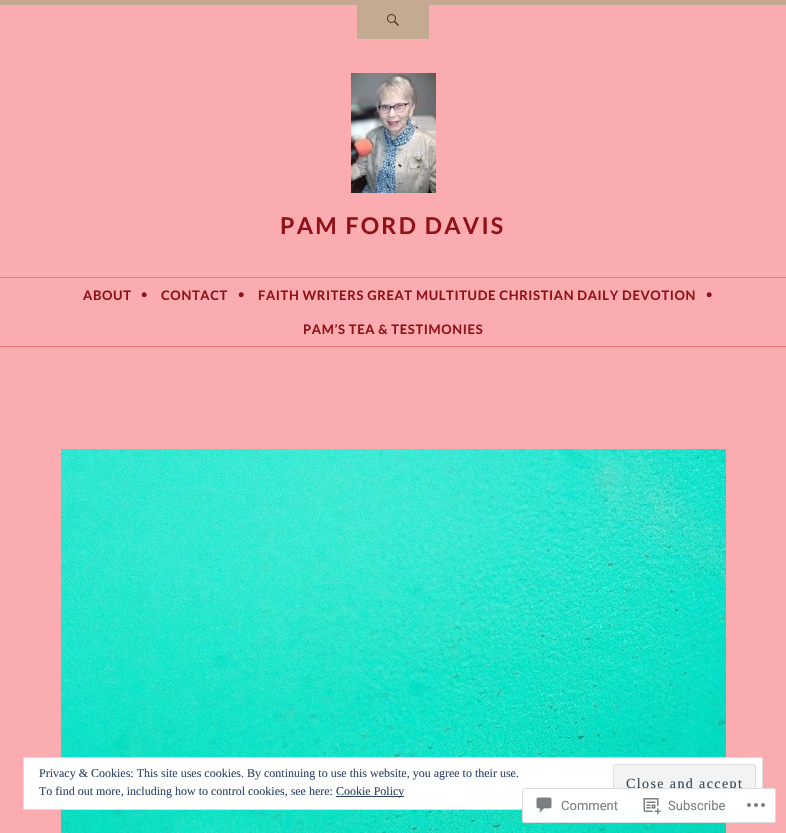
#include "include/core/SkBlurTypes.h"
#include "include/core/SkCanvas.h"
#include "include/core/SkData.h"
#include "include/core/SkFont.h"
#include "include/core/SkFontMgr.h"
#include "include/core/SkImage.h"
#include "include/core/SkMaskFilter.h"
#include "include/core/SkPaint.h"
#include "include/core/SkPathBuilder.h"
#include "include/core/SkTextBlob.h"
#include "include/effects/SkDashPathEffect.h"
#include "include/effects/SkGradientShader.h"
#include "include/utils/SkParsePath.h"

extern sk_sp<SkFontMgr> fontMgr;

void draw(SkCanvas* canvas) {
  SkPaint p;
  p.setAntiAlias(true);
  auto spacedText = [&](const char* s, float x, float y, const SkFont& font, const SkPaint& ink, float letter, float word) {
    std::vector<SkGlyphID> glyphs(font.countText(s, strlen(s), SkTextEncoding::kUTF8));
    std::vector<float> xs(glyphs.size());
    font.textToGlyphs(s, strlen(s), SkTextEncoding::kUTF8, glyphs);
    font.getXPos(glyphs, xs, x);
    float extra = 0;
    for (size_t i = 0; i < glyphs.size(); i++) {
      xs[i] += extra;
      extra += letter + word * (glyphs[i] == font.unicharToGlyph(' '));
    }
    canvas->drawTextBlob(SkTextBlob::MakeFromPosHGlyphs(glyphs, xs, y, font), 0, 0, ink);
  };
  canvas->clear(SkColorSetRGB(251, 172, 176));
  p.setColor(SkColorSetRGB(195, 170, 144));
  canvas->drawRect(SkRect::MakeLTRB(0, 0, 786, 5), p);
  canvas->drawRect(SkRect::MakeLTRB(357, 5, 429, 39), p);
  canvas->drawImageRect(SkImages::DeferredFromEncodedData(SkData::MakeFromFileName("images/1.png")), SkRect::MakeLTRB(387, 14, 399, 26), SkSamplingOptions());
  p.setColor(SkColorSetRGB(238, 118, 124));
  canvas->drawRect(SkRect::MakeLTRB(0, 346, 786, 347), p);
  canvas->drawImageRect(SkImages::DeferredFromEncodedData(SkData::MakeFromFileName("images/2.png")), SkRect::MakeLTRB(351, 73, 436, 193), SkSamplingOptions());
  canvas->drawRect(SkRect::MakeLTRB(0, 277, 786, 278), p);
  canvas->drawImageRect(SkImages::DeferredFromEncodedData(SkData::MakeFromFileName("images/3.png")), SkRect::MakeLTRB(61, 449, 726, 833), SkSamplingOptions());
  p.setColor(SK_ColorWHITE);
  canvas->drawRect(SkRect::MakeLTRB(23.5f, 757.5f, 762.5f, 809.5f), p);
  p.setStyle(SkPaint::kStroke_Style);
  p.setStrokeWidth(1);
  p.setColor(SkColorSetRGB(222, 222, 222));
  canvas->drawRect(SkRect::MakeLTRB(23.5f, 757.5f, 762.5f, 809.5f), p);
  p.setStyle(SkPaint::kFill_Style);
  p.setColor(SkColorSetRGB(46, 68, 103));
  canvas->drawRect(SkRect::MakeLTRB(336, 796, 404, 797), p);
  p.setColor(SkColorSetRGB(243, 243, 243));
  canvas->drawRoundRect(SkRect::MakeLTRB(613.5f, 764.5f, 755.5f, 802.5f), 2.5f, 2.5f, p);
  p.setStyle(SkPaint::kStroke_Style);
  p.setColor(SkColorSetRGB(222, 222, 222));
  canvas->drawRoundRect(SkRect::MakeLTRB(613.5f, 764.5f, 755.5f, 802.5f), 2.5f, 2.5f, p);
  SkFont font1(fontMgr->matchFamilyStyle("Lato", SkFontStyle::Bold()), 23);
  font1.setSubpixel(true);
  p.setStyle(SkPaint::kFill_Style);
  p.setColor(SkColorSetRGB(145, 17, 24));
  spacedText("PAM FORD DAVIS", 280, 234, font1, p, 2.25f, 0);
  SkFont font2(fontMgr->matchFamilyStyle("Lato", SkFontStyle::Bold()), 13);
  font2.setSubpixel(true);
  spacedText("ABOUT", 83, 300, font2, p, 0.65f, 0);
  SkFont font3(fontMgr->matchFamilyStyle("Lato", SkFontStyle::Bold()), 11);
  font3.setSubpixel(true);
  spacedText("•", 141, 298, font3, p, 0.65f, 0);
  spacedText("CONTACT", 161, 300, font2, p, 0.65f, 0);
  spacedText("•", 238, 298, font3, p, 0.65f, 0);
  spacedText("FAITH WRITERS GREAT MULTITUDE CHRISTIAN DAILY DEVOTION", 258, 300, font2, p, 0.65f, 0);
  spacedText("•", 706, 298, font3, p, 0.65f, 0);
  spacedText("PAM’S TEA & TESTIMONIES", 303, 334, font2, p, 0.65f, 0);
  SkFont font4(fontMgr->matchFamilyStyle("Liberation Serif", SkFontStyle::Normal()), 12);
  font4.setSubpixel(true);
  p.setColor(SkColorSetRGB(46, 68, 103));
  canvas->drawString("Privacy & Cookies: This site uses cookies. By continuing to use this website, you agree to their use.", 39, 777, font4, p);
  canvas->drawString("To find out more, including how to control cookies, see here:", 39, 795, font4, p);
  canvas->drawString("Cookie Policy", 336, 795, font4, p);
  SkFont font5(fontMgr->matchFamilyStyle("Liberation Serif", SkFontStyle::Normal()), 14);
  font5.setSubpixel(true);
  p.setColor(SkColorSetRGB(46, 68, 83));
  spacedText("Close and accept", 626, 788, font5, p, 1.4f, 0);
  p.setColor(SkColorSetARGB(250, 255, 255, 255));
  canvas->drawRoundRect(SkRect::MakeLTRB(522, 788, 776, 823), 3, 3, p);
  p.setStyle(SkPaint::kStroke_Style);
  p.setColor(SkColorSetARGB(250, 220, 220, 222));
  canvas->drawRoundRect(SkRect::MakeLTRB(522.5f, 788.5f, 775.5f, 822.5f), 2.5f, 2.5f, p);
  canvas->drawImageRect(SkImages::DeferredFromEncodedData(SkData::MakeFromFileName("images/4.png")), SkRect::MakeLTRB(536, 797, 552, 813), SkSamplingOptions());
  SkFont font6(fontMgr->matchFamilyStyle("Roboto", SkFontStyle::Normal()), 13);
  font6.setSubpixel(true);
  p.setStyle(SkPaint::kFill_Style);
  p.setColor(SkColorSetRGB(123, 127, 132));
  canvas->drawString("Comment", 561, 810, font6, p);
  canvas->drawImageRect(SkImages::DeferredFromEncodedData(SkData::MakeFromFileName("images/5.png")), SkRect::MakeLTRB(643, 798, 661, 815), SkSamplingOptions());
  canvas->drawString("Subscribe", 668, 810, font6, p);
  canvas->drawImageRect(SkImages::DeferredFromEncodedData(SkData::MakeFromFileName("images/6.png")), SkRect::MakeLTRB(747, 803, 765, 807), SkSamplingOptions());
}
